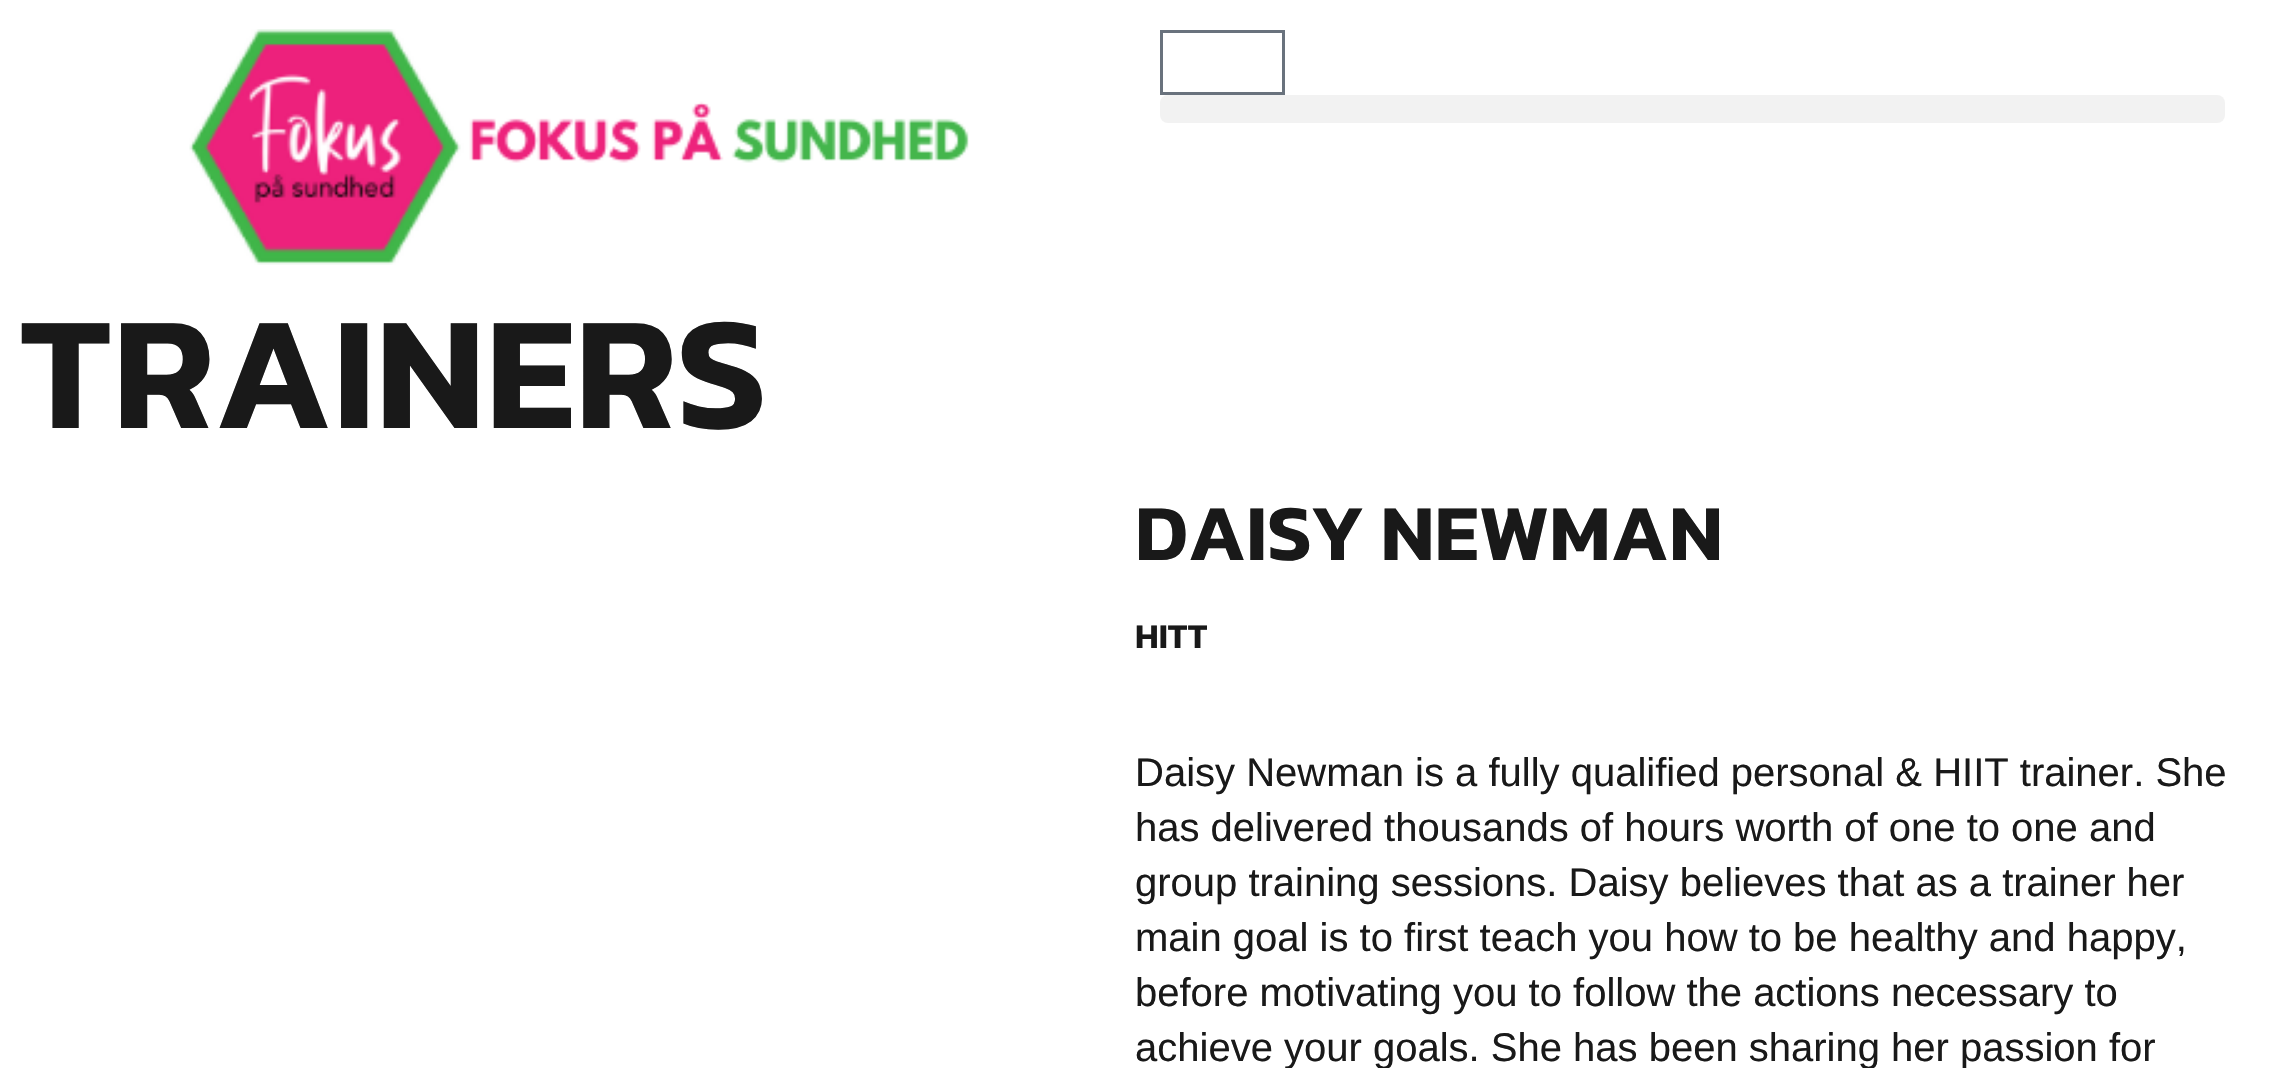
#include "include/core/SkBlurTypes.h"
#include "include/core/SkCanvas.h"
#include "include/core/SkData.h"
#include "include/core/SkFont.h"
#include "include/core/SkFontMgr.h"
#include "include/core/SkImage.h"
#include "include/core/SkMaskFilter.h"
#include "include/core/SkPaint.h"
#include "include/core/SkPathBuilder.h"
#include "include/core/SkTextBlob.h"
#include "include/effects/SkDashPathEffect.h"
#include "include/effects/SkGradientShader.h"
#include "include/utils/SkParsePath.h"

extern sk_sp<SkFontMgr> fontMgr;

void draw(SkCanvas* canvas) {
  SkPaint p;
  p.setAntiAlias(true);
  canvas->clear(SK_ColorWHITE);
  canvas->drawImageRect(SkImages::DeferredFromEncodedData(SkData::MakeFromFileName("images/1.png")), SkRect::MakeLTRB(189, 29, 969, 265), SkSamplingOptions());
  p.setStyle(SkPaint::kStroke_Style);
  p.setStrokeWidth(3);
  p.setColor(SkColorSetRGB(105, 114, 125));
  canvas->drawRect(SkRect::MakeLTRB(1161.5f, 31.5f, 1283.5f, 93.5f), p);
  p.setStyle(SkPaint::kFill_Style);
  p.setColor(SkColorSetRGB(242, 242, 242));
  canvas->drawRoundRect(SkRect::MakeLTRB(1160, 95, 2225, 123), 8, 8, p);
  SkFont font1(fontMgr->matchFamilyStyle("Kanit", SkFontStyle(600, SkFontStyle::kNormal_Width, SkFontStyle::kUpright_Slant)), 162.5f);
  font1.setSubpixel(true);
  p.setColor(SkColorSetRGB(25, 25, 25));
  canvas->drawString("TRAINERS", 20, 428, font1, p);
  SkFont font2(fontMgr->matchFamilyStyle("Kanit", SkFontStyle(600, SkFontStyle::kNormal_Width, SkFontStyle::kUpright_Slant)), 80);
  font2.setSubpixel(true);
  canvas->drawString("DAISY NEWMAN", 1135, 560, font2, p);
  SkFont font3(fontMgr->matchFamilyStyle("Kanit", SkFontStyle(600, SkFontStyle::kNormal_Width, SkFontStyle::kUpright_Slant)), 35);
  font3.setSubpixel(true);
  canvas->drawString("HITT", 1135, 648, font3, p);
  SkFont font4(fontMgr->matchFamilyStyle("Liberation Sans", SkFontStyle::Normal()), 40);
  font4.setSubpixel(true);
  canvas->drawString("Daisy Newman is a fully qualified personal & HIIT trainer. She", 1135, 786, font4, p);
  canvas->drawString("has delivered thousands of hours worth of one to one and", 1135, 841, font4, p);
  canvas->drawString("group training sessions. Daisy believes that as a trainer her", 1135, 896, font4, p);
  canvas->drawString("main goal is to first teach you how to be healthy and happy,", 1135, 951, font4, p);
  canvas->drawString("before motivating you to follow the actions necessary to", 1135, 1006, font4, p);
  canvas->drawString("achieve your goals. She has been sharing her passion for", 1135, 1061, font4, p);
}
